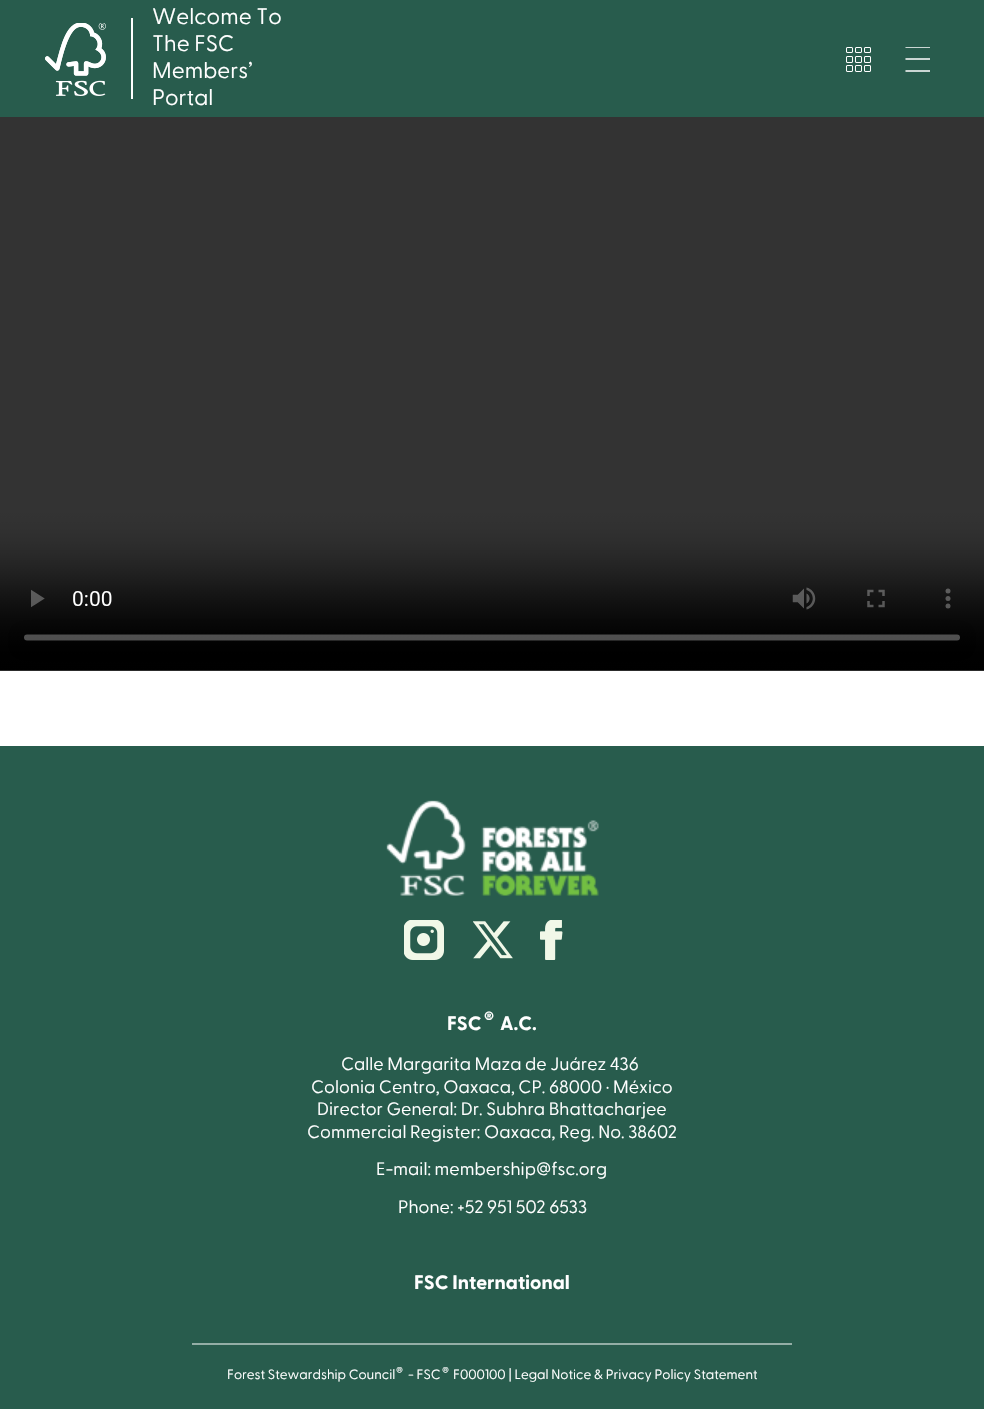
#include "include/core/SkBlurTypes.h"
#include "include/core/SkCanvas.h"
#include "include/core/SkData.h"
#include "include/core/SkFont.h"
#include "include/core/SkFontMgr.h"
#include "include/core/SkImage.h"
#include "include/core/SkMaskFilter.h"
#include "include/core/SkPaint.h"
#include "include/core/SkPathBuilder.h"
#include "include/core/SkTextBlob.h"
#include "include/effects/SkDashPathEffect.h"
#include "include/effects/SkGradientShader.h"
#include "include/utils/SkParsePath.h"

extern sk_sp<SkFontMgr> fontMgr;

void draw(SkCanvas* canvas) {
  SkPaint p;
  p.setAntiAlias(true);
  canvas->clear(SK_ColorWHITE);
  p.setColor(SkColorSetRGB(40, 92, 77));
  canvas->drawRect(SkRect::MakeLTRB(0, 0, 984, 117), p);
  canvas->drawImageRect(SkImages::DeferredFromEncodedData(SkData::MakeFromFileName("images/1.png")), SkRect::MakeLTRB(45, 23, 106, 96), SkSamplingOptions());
  p.setColor(SK_ColorWHITE);
  canvas->drawRect(SkRect::MakeLTRB(131, 18, 133, 99), p);
  canvas->drawImageRect(SkImages::DeferredFromEncodedData(SkData::MakeFromFileName("images/2.png")), SkRect::MakeLTRB(846, 47, 871, 72), SkSamplingOptions());
  canvas->save();
  canvas->clipRect(SkRect::MakeLTRB(905, 47, 930, 72));
  p.setStyle(SkPaint::kStroke_Style);
  p.setStrokeWidth(1.5f);
  p.setStrokeCap(SkPaint::kRound_Cap);
  canvas->drawPath(SkPathBuilder().moveTo(906, 47).lineTo(930, 47).moveTo(906, 59).lineTo(930, 59).moveTo(906, 71).lineTo(930, 71).detach(), p);
  canvas->restore();
  canvas->drawImageRect(SkImages::DeferredFromEncodedData(SkData::MakeFromFileName("images/3.png")), SkRect::MakeLTRB(0, 117, 984, 671), SkSamplingOptions());
  p.setStyle(SkPaint::kFill_Style);
  p.setColor(SkColorSetRGB(40, 92, 77));
  canvas->drawRect(SkRect::MakeLTRB(0, 746, 984, 1409), p);
  canvas->drawImageRect(SkImages::DeferredFromEncodedData(SkData::MakeFromFileName("images/4.png")), SkRect::MakeLTRB(386, 800, 599, 896), SkSamplingOptions());
  canvas->drawImageRect(SkImages::DeferredFromEncodedData(SkData::MakeFromFileName("images/5.png")), SkRect::MakeLTRB(404, 920, 444, 960), SkSamplingOptions());
  canvas->drawImageRect(SkImages::DeferredFromEncodedData(SkData::MakeFromFileName("images/6.png")), SkRect::MakeLTRB(473, 921, 513, 959), SkSamplingOptions());
  canvas->drawImageRect(SkImages::DeferredFromEncodedData(SkData::MakeFromFileName("images/7.png")), SkRect::MakeLTRB(540, 920, 563, 960), SkSamplingOptions());
  p.setColor(SkColorSetRGB(148, 174, 166));
  canvas->drawRect(SkRect::MakeLTRB(192, 1343, 792, 1345), p);
  SkFont font1(fontMgr->matchFamilyStyle("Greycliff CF", SkFontStyle::Normal()), 22.5f);
  font1.setSubpixel(true);
  p.setColor(SK_ColorWHITE);
  canvas->drawString("Welcome To", 152, 24, font1, p);
  canvas->drawString("The FSC", 152, 51, font1, p);
  canvas->drawString("Members’", 152, 78, font1, p);
  canvas->drawString("Portal", 152, 105, font1, p);
  SkFont font2(fontMgr->matchFamilyStyle("Greycliff CF", SkFontStyle::Bold()), 19.5f);
  font2.setSubpixel(true);
  canvas->drawString("FSC", 447, 1030, font2, p);
  SkFont font3(fontMgr->matchFamilyStyle("Greycliff CF", SkFontStyle::Bold()), 15);
  font3.setSubpixel(true);
  canvas->drawString("®", 484, 1022, font3, p);
  canvas->drawString("A.C.", 500, 1030, font2, p);
  SkFont font4(fontMgr->matchFamilyStyle("Greycliff CF", SkFontStyle::Normal()), 18);
  font4.setSubpixel(true);
  canvas->drawString("Calle Margarita Maza de Juárez 436", 341, 1070, font4, p);
  canvas->drawString("Colonia Centro, Oaxaca, CP. 68000 · México", 311, 1093, font4, p);
  canvas->drawString("Director General: Dr. Subhra Bhattacharjee", 317, 1115, font4, p);
  canvas->drawString("Commercial Register: Oaxaca, Reg. No. 38602", 307, 1138, font4, p);
  canvas->drawString("E-mail: membership@fsc.org", 376, 1175, font4, p);
  canvas->drawString("Phone: +52 951 502 6533", 398, 1213, font4, p);
  canvas->drawString("FSC International", 414, 1289, font2, p);
  SkFont font5(fontMgr->matchFamilyStyle("Greycliff CF", SkFontStyle::Normal()), 13.5f);
  font5.setSubpixel(true);
  canvas->drawString("Forest Stewardship Council", 227, 1379, font5, p);
  SkFont font6(fontMgr->matchFamilyStyle("Greycliff CF", SkFontStyle::Normal()), 10);
  font6.setSubpixel(true);
  canvas->drawString("®", 396, 1374, font6, p);
  canvas->drawString("- FSC", 408, 1379, font5, p);
  canvas->drawString("®", 442, 1374, font6, p);
  canvas->drawString("F000100 | Legal Notice & Privacy Policy Statement", 453, 1379, font5, p);
}
